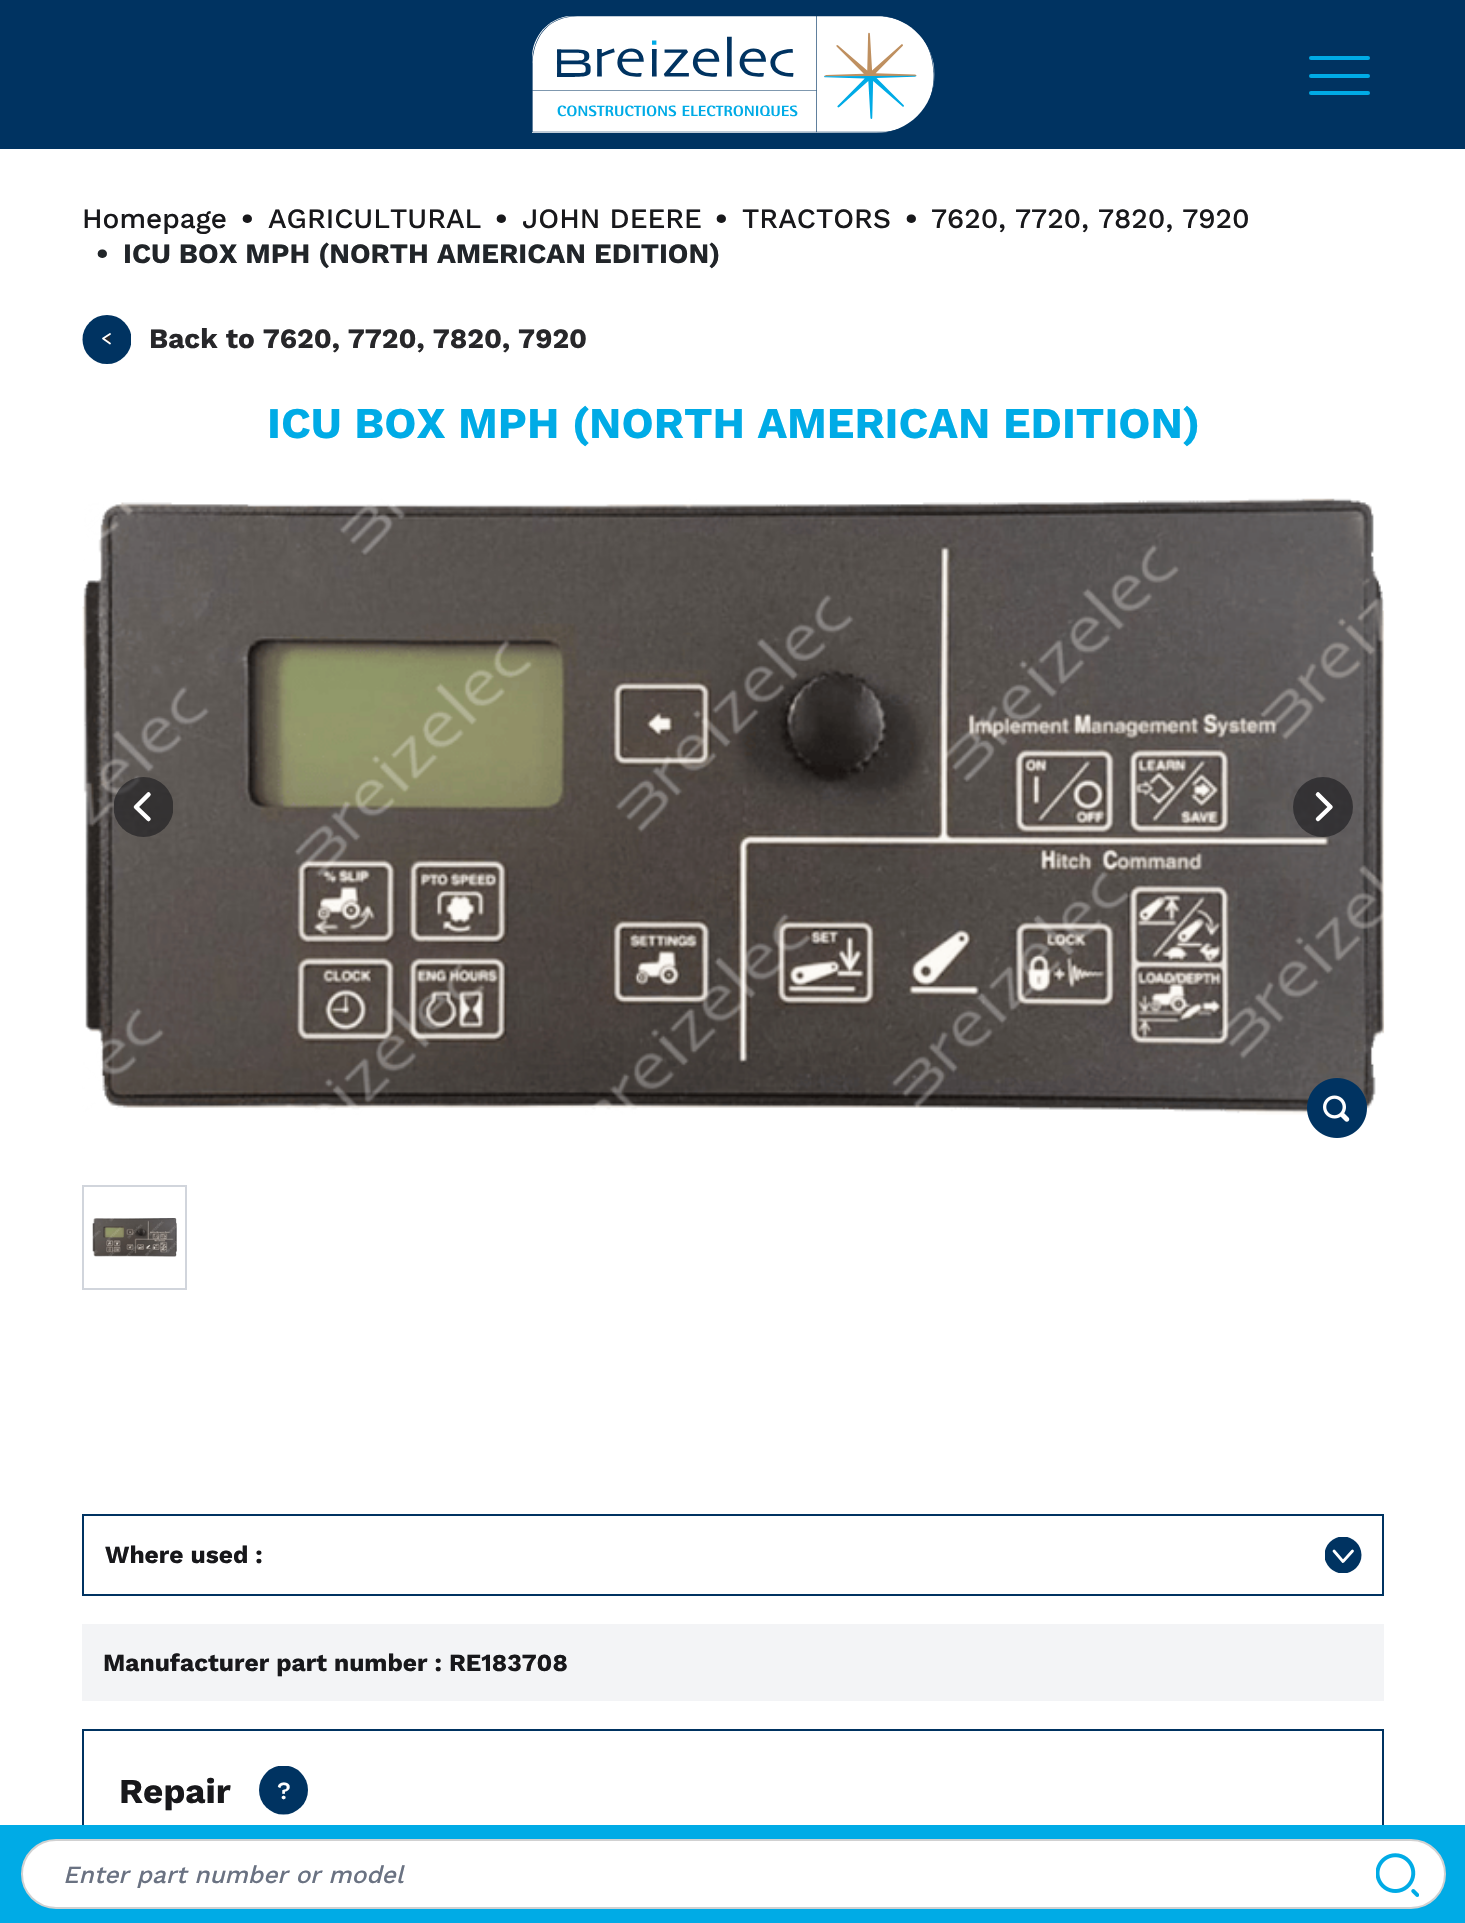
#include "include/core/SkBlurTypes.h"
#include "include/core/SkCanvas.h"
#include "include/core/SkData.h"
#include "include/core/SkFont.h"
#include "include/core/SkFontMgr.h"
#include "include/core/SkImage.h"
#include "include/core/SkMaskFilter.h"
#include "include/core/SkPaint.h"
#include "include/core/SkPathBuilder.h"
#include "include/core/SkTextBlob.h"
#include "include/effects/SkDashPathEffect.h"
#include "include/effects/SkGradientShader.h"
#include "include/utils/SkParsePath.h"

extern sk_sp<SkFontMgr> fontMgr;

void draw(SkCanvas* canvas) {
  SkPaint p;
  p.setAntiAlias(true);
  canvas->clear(SK_ColorWHITE);
  canvas->save();
  canvas->clipRect(SkRect::MakeLTRB(82, 315, 131, 364));
  p.setColor(SkColorSetRGB(0, 51, 97));
  canvas->drawCircle(107, 339.5f, 24.5f, p);
  canvas->restore();
  p.setColor(SkColorSetRGB(39, 39, 42));
  canvas->drawPath(SkPathBuilder(SkPathFillType::kEvenOdd).moveTo(110, 334).lineTo(103, 338.5f).lineTo(110, 343.5f).detach(), p);
  p.setStyle(SkPaint::kStroke_Style);
  p.setStrokeWidth(1.8f);
  p.setStrokeCap(SkPaint::kRound_Cap);
  p.setStrokeJoin(SkPaint::kRound_Join);
  p.setColor(SK_ColorWHITE);
  canvas->drawPath(SkPathBuilder(SkPathFillType::kEvenOdd).moveTo(110, 334).lineTo(103, 338.5f).lineTo(110, 343.5f).detach(), p);
  canvas->drawImageRect(SkImages::DeferredFromEncodedData(SkData::MakeFromFileName("images/1.png")), SkRect::MakeLTRB(82, 498, 1385, 1115), SkSamplingOptions());
  canvas->save();
  canvas->clipRect(SkRect::MakeLTRB(114, 777, 173, 837));
  p.setStyle(SkPaint::kFill_Style);
  p.setColor(SkColorSetARGB(153, 24, 24, 27));
  canvas->drawCircle(143.5f, 807, 30, p);
  canvas->restore();
  p.setStyle(SkPaint::kStroke_Style);
  p.setStrokeWidth(4.5f);
  p.setColor(SK_ColorWHITE);
  canvas->drawPath(SkPathBuilder().moveTo(148.5f, 794.5f).lineTo(136, 807).lineTo(148.5f, 819).detach(), p);
  p.setStyle(SkPaint::kFill_Style);
  p.setColor(SkColorSetARGB(153, 24, 24, 27));
  canvas->drawCircle(1323, 807, 30, p);
  p.setStyle(SkPaint::kStroke_Style);
  p.setColor(SK_ColorWHITE);
  canvas->drawPath(SkPathBuilder().moveTo(1318, 819).lineTo(1330.5f, 807).lineTo(1318, 794.5f).detach(), p);
  canvas->drawImageRect(SkImages::DeferredFromEncodedData(SkData::MakeFromFileName("images/2.png")), SkRect::MakeLTRB(1307, 1078, 1367, 1138), SkSamplingOptions());
  p.setStrokeWidth(2);
  p.setStrokeCap(SkPaint::kButt_Cap);
  p.setStrokeJoin(SkPaint::kMiter_Join);
  p.setColor(SkColorSetRGB(209, 213, 220));
  canvas->drawRect(SkRect::MakeLTRB(83, 1186, 186, 1289), p);
  canvas->drawImageRect(SkImages::DeferredFromEncodedData(SkData::MakeFromFileName("images/3.png")), SkRect::MakeLTRB(92, 1218, 177, 1257), SkSamplingOptions());
  p.setColor(SkColorSetRGB(0, 51, 97));
  canvas->drawRect(SkRect::MakeLTRB(83, 1515, 1383, 1595), p);
  canvas->save();
  canvas->clipRect(SkRect::MakeLTRB(1325, 1537, 1362, 1573));
  p.setStyle(SkPaint::kFill_Style);
  canvas->drawCircle(1343, 1555, 18.5f, p);
  canvas->restore();
  p.setStyle(SkPaint::kStroke_Style);
  p.setStrokeWidth(2.8f);
  p.setStrokeCap(SkPaint::kRound_Cap);
  p.setStrokeJoin(SkPaint::kRound_Join);
  p.setColor(SK_ColorWHITE);
  canvas->drawPath(SkPathBuilder().moveTo(1334, 1551).lineTo(1343, 1561.5f).lineTo(1352.5f, 1551).detach(), p);
  p.setStyle(SkPaint::kFill_Style);
  p.setColor(SkColorSetRGB(243, 244, 246));
  canvas->drawRect(SkRect::MakeLTRB(82, 1624, 1384, 1701), p);
  p.setStyle(SkPaint::kStroke_Style);
  p.setStrokeWidth(2);
  p.setStrokeCap(SkPaint::kButt_Cap);
  p.setStrokeJoin(SkPaint::kMiter_Join);
  p.setColor(SkColorSetRGB(0, 51, 97));
  canvas->drawRect(SkRect::MakeLTRB(83, 1730, 1383, 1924), p);
  canvas->save();
  canvas->clipRect(SkRect::MakeLTRB(259, 1766, 308, 1815));
  p.setStyle(SkPaint::kFill_Style);
  canvas->drawCircle(283.5f, 1790, 24.5f, p);
  canvas->restore();
  canvas->drawRect(SkRect::MakeLTRB(0, 0, 1465, 149), p);
  canvas->drawImageRect(SkImages::DeferredFromEncodedData(SkData::MakeFromFileName("images/4.png")), SkRect::MakeLTRB(532, 16, 935, 133), SkSamplingOptions());
  p.setColor(SkColorSetRGB(0, 171, 230));
  canvas->drawRoundRect(SkRect::MakeLTRB(1309, 56, 1370, 60), 2, 2, p);
  canvas->drawRoundRect(SkRect::MakeLTRB(1309, 74, 1370, 78), 2, 2, p);
  canvas->drawRoundRect(SkRect::MakeLTRB(1309, 91, 1370, 95), 2, 2, p);
  canvas->drawRect(SkRect::MakeLTRB(0, 1825, 1465, 1923), p);
  p.setColor(SK_ColorWHITE);
  canvas->drawRoundRect(SkRect::MakeLTRB(22, 1840, 1445, 1908), 34, 34, p);
  p.setStyle(SkPaint::kStroke_Style);
  p.setColor(SkColorSetRGB(209, 209, 209));
  canvas->drawRoundRect(SkRect::MakeLTRB(22, 1840, 1445, 1908), 34, 34, p);
  canvas->drawImageRect(SkImages::DeferredFromEncodedData(SkData::MakeFromFileName("images/5.png")), SkRect::MakeLTRB(1376, 1853, 1419, 1897), SkSamplingOptions());
  SkFont font1(fontMgr->matchFamilyStyle("Work Sans", SkFontStyle(500, SkFontStyle::kNormal_Width, SkFontStyle::kUpright_Slant)), 28);
  font1.setSubpixel(true);
  p.setStyle(SkPaint::kFill_Style);
  p.setColor(SkColorSetRGB(24, 24, 27));
  canvas->drawString("Homepage", 82, 228, font1, p);
  SkFont font2(fontMgr->matchFamilyStyle("Work Sans", SkFontStyle::Bold()), 46);
  font2.setSubpixel(true);
  canvas->drawString("·", 241, 235, font2, p);
  canvas->drawString("AGRICULTURAL", 268, 228, font1, p);
  canvas->drawString("·", 495, 235, font2, p);
  canvas->drawString("JOHN DEERE", 522, 228, font1, p);
  canvas->drawString("·", 715, 235, font2, p);
  canvas->drawString("TRACTORS", 742, 228, font1, p);
  canvas->drawString("·", 905, 235, font2, p);
  canvas->drawString("7620, 7720, 7820, 7920", 931, 228, font1, p);
  p.setColor(SkColorSetRGB(33, 37, 41));
  canvas->drawString("·", 96, 270, font2, p);
  SkFont font3(fontMgr->matchFamilyStyle("Work Sans", SkFontStyle::Bold()), 28);
  font3.setSubpixel(true);
  canvas->drawString("ICU BOX MPH (NORTH AMERICAN EDITION)", 123, 263, font3, p);
  p.setColor(SkColorSetRGB(39, 39, 42));
  canvas->drawString("Back to 7620, 7720, 7820, 7920", 149, 348, font3, p);
  SkFont font4(fontMgr->matchFamilyStyle("Work Sans", SkFontStyle::Bold()), 43.75f);
  font4.setSubpixel(true);
  p.setColor(SkColorSetRGB(0, 171, 230));
  canvas->drawString("ICU BOX MPH (NORTH AMERICAN EDITION)", 267, 438, font4, p);
  SkFont font5(fontMgr->matchFamilyStyle("Work Sans", SkFontStyle::Bold()), 24.5f);
  font5.setSubpixel(true);
  p.setColor(SkColorSetRGB(24, 24, 27));
  canvas->drawString("Where used :", 105, 1563, font5, p);
  canvas->drawString("Manufacturer part number : RE183708", 103, 1671, font5, p);
  SkFont font6(fontMgr->matchFamilyStyle("Work Sans", SkFontStyle::Bold()), 35);
  font6.setSubpixel(true);
  canvas->drawString("Repair", 119, 1803, font6, p);
  SkFont font7(fontMgr->matchFamilyStyle("Work Sans", SkFontStyle(500, SkFontStyle::kNormal_Width, SkFontStyle::kUpright_Slant)), 24.5f);
  font7.setSubpixel(true);
  p.setColor(SK_ColorWHITE);
  canvas->drawString("?", 277, 1799, font7, p);
  canvas->save();
  canvas->clipRect(SkRect::MakeLTRB(63, 1860, 1365, 1888));
  SkFont font8(fontMgr->matchFamilyStyle("Work Sans", SkFontStyle(500, SkFontStyle::kNormal_Width, SkFontStyle::kItalic_Slant)), 24.5f);
  font8.setSubpixel(true);
  p.setColor(SkColorSetRGB(106, 114, 130));
  canvas->drawString("Enter part number or model", 63, 1883, font8, p);
  canvas->restore();
}
